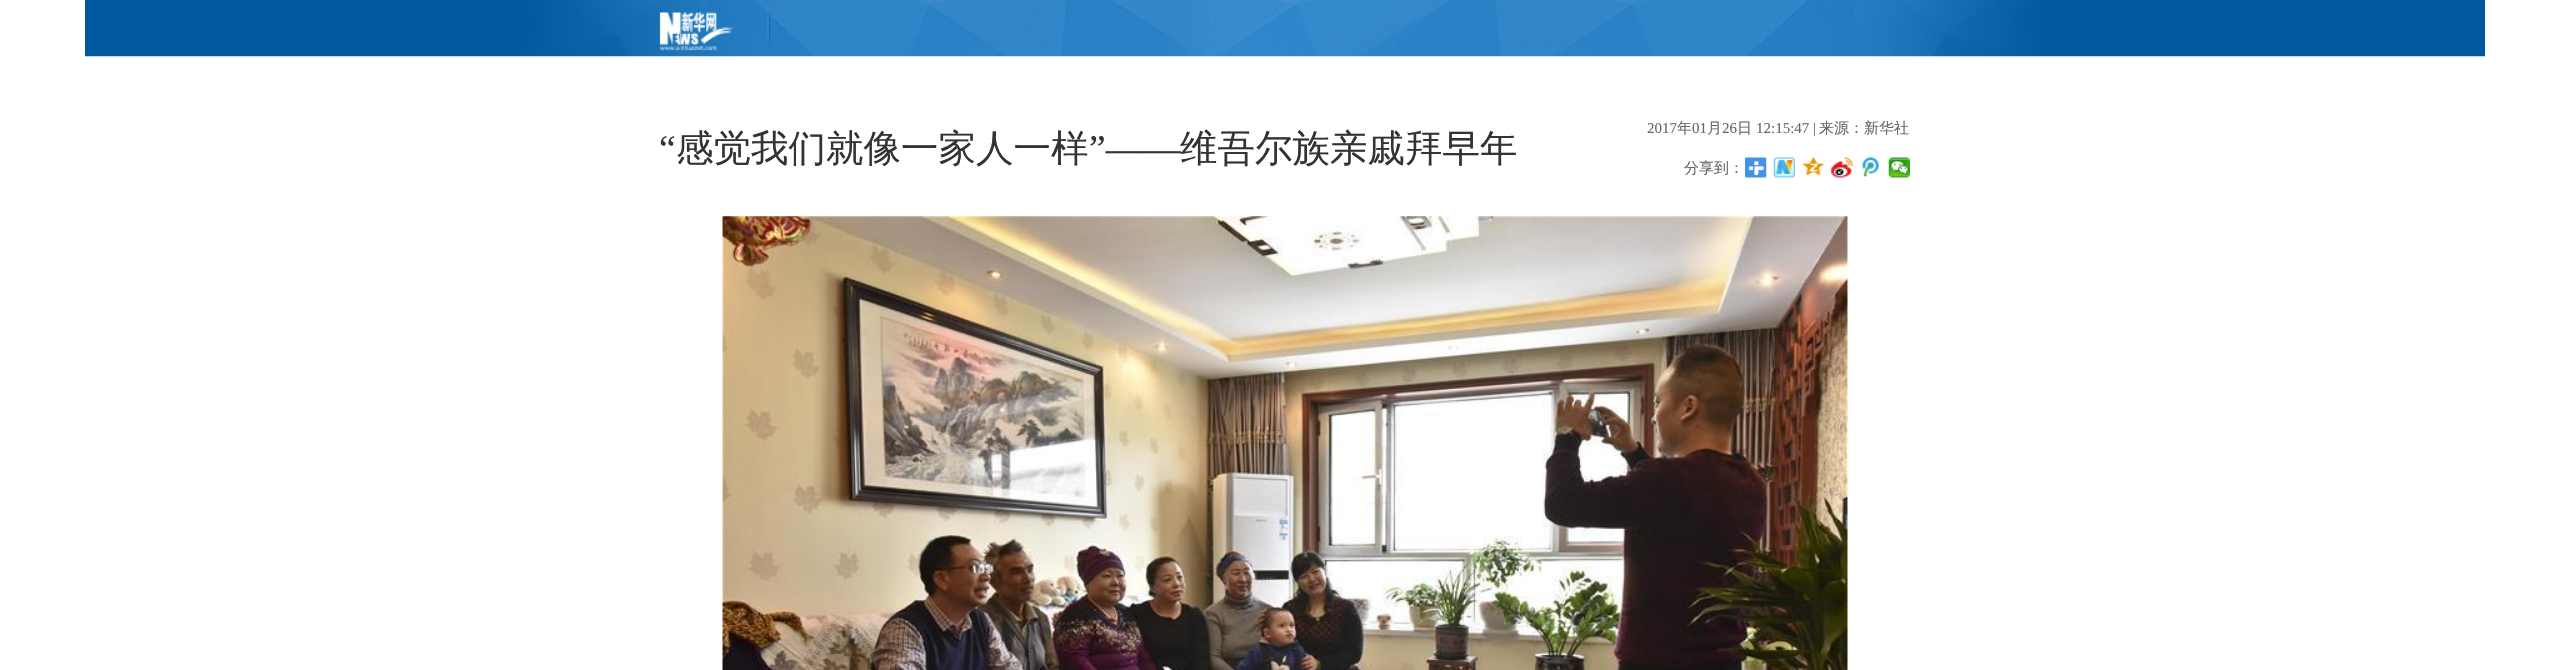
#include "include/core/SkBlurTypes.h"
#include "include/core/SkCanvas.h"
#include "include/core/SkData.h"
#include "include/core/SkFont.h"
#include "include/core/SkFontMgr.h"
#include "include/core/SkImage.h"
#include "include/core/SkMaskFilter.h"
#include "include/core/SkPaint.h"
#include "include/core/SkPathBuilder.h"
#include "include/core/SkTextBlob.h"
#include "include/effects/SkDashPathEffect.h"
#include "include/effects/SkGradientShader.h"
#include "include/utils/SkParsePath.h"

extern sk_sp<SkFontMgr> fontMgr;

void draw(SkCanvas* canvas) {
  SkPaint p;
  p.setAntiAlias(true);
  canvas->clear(SK_ColorWHITE);
  canvas->drawImageRect(SkImages::DeferredFromEncodedData(SkData::MakeFromFileName("images/1.png")), SkRect::MakeLTRB(85, 0, 2485, 57), SkSamplingOptions());
  canvas->drawImageRect(SkImages::DeferredFromEncodedData(SkData::MakeFromFileName("images/2.png")), SkRect::MakeLTRB(1745, 157, 1767, 178), SkSamplingOptions());
  canvas->drawImageRect(SkImages::DeferredFromEncodedData(SkData::MakeFromFileName("images/3.png")), SkRect::MakeLTRB(1773, 157, 1795, 178), SkSamplingOptions());
  canvas->drawImageRect(SkImages::DeferredFromEncodedData(SkData::MakeFromFileName("images/4.png")), SkRect::MakeLTRB(1802, 157, 1824, 176), SkSamplingOptions());
  canvas->drawImageRect(SkImages::DeferredFromEncodedData(SkData::MakeFromFileName("images/5.png")), SkRect::MakeLTRB(1831, 157, 1853, 178), SkSamplingOptions());
  canvas->drawImageRect(SkImages::DeferredFromEncodedData(SkData::MakeFromFileName("images/6.png")), SkRect::MakeLTRB(1862, 157, 1879, 177), SkSamplingOptions());
  canvas->drawImageRect(SkImages::DeferredFromEncodedData(SkData::MakeFromFileName("images/7.png")), SkRect::MakeLTRB(1888, 157, 1910, 178), SkSamplingOptions());
  canvas->drawImageRect(SkImages::DeferredFromEncodedData(SkData::MakeFromFileName("images/8.png")), SkRect::MakeLTRB(722, 216, 1848, 670), SkSamplingOptions());
  SkFont font1(fontMgr->matchFamilyStyle("Liberation Serif", SkFontStyle::Normal()), 37.5f);
  font1.setSubpixel(true);
  p.setColor(SkColorSetRGB(51, 51, 51));
  canvas->drawString("“", 659, 161, font1, p);
  SkFont font2(fontMgr->matchFamilyStyle("WenQuanYi Zen Hei", SkFontStyle(500, SkFontStyle::kNormal_Width, SkFontStyle::kUpright_Slant)), 37.5f);
  font2.setSubpixel(true);
  canvas->drawString("感觉我们就像一家人一样", 676, 161, font2, p);
  canvas->drawString("”——", 1089, 161, font1, p);
  canvas->drawString("维吾尔族亲戚拜早年", 1180, 161, font2, p);
  SkFont font3(fontMgr->matchFamilyStyle("Liberation Serif", SkFontStyle::Normal()), 15);
  font3.setSubpixel(true);
  p.setColor(SkColorSetRGB(102, 102, 102));
  canvas->drawString("2017", 1647, 133, font3, p);
  SkFont font4(fontMgr->matchFamilyStyle("WenQuanYi Zen Hei", SkFontStyle(500, SkFontStyle::kNormal_Width, SkFontStyle::kUpright_Slant)), 15);
  font4.setSubpixel(true);
  canvas->drawString("年", 1677, 133, font4, p);
  canvas->drawString("01", 1692, 133, font3, p);
  canvas->drawString("月", 1707, 133, font4, p);
  canvas->drawString("26", 1722, 133, font3, p);
  canvas->drawString("日", 1737, 133, font4, p);
  canvas->drawString("12:15:47 |", 1756, 133, font3, p);
  canvas->drawString("来源：新华社", 1819, 133, font4, p);
  canvas->drawString("分享到：", 1684, 173, font4, p);
}
